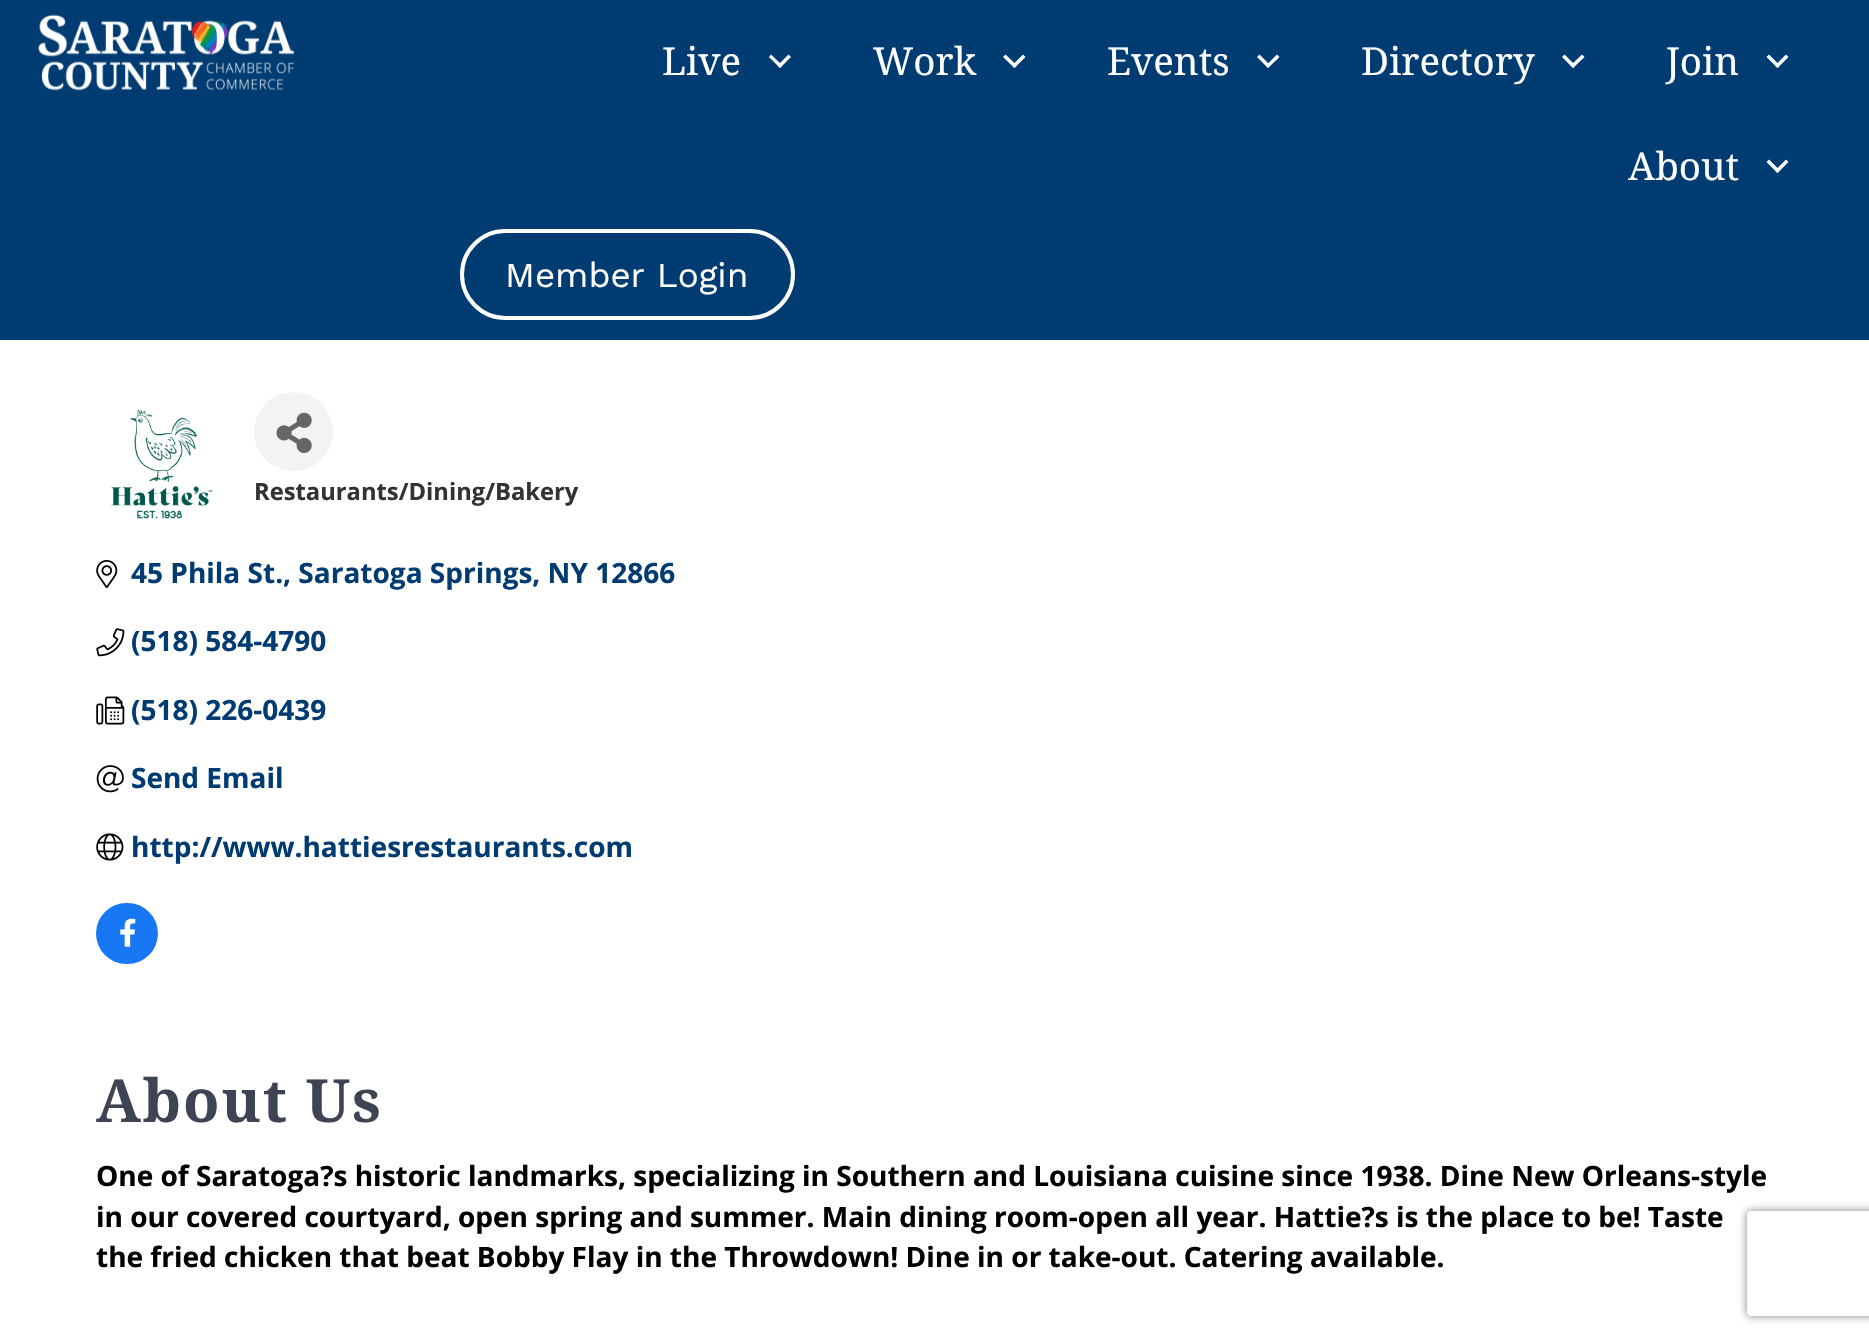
#include "include/core/SkBlurTypes.h"
#include "include/core/SkCanvas.h"
#include "include/core/SkData.h"
#include "include/core/SkFont.h"
#include "include/core/SkFontMgr.h"
#include "include/core/SkImage.h"
#include "include/core/SkMaskFilter.h"
#include "include/core/SkPaint.h"
#include "include/core/SkPathBuilder.h"
#include "include/core/SkTextBlob.h"
#include "include/effects/SkDashPathEffect.h"
#include "include/effects/SkGradientShader.h"
#include "include/utils/SkParsePath.h"

extern sk_sp<SkFontMgr> fontMgr;

void draw(SkCanvas* canvas) {
  SkPaint p;
  p.setAntiAlias(true);
  auto spacedText = [&](const char* s, float x, float y, const SkFont& font, const SkPaint& ink, float letter, float word) {
    std::vector<SkGlyphID> glyphs(font.countText(s, strlen(s), SkTextEncoding::kUTF8));
    std::vector<float> xs(glyphs.size());
    font.textToGlyphs(s, strlen(s), SkTextEncoding::kUTF8, glyphs);
    font.getXPos(glyphs, xs, x);
    float extra = 0;
    for (size_t i = 0; i < glyphs.size(); i++) {
      xs[i] += extra;
      extra += letter + word * (glyphs[i] == font.unicharToGlyph(' '));
    }
    canvas->drawTextBlob(SkTextBlob::MakeFromPosHGlyphs(glyphs, xs, y, font), 0, 0, ink);
  };
  canvas->clear(SK_ColorWHITE);
  p.setColor(SkColorSetRGB(0, 59, 113));
  canvas->drawRect(SkRect::MakeLTRB(0, 0, 1869, 340), p);
  canvas->drawImageRect(SkImages::DeferredFromEncodedData(SkData::MakeFromFileName("images/1.png")), SkRect::MakeLTRB(38, 14, 294, 91), SkSamplingOptions());
  p.setColor(SK_ColorWHITE);
  canvas->drawPath(SkPathBuilder().moveTo(788.5f, 54.5f).lineTo(791, 57).lineTo(780, 68).lineTo(777.5f, 65.5f).close().detach(), p);
  canvas->drawPath(SkPathBuilder().moveTo(771, 54.5f).lineTo(782.5f, 65.5f).lineTo(780, 68).lineTo(769, 57).close().detach(), p);
  canvas->drawPath(SkPathBuilder().moveTo(1023, 54.5f).lineTo(1025.5f, 57).lineTo(1014.5f, 68).lineTo(1012, 65.5f).close().detach(), p);
  canvas->drawPath(SkPathBuilder().moveTo(1005.5f, 54.5f).lineTo(1017, 65.5f).lineTo(1014.5f, 68).lineTo(1003, 57).close().detach(), p);
  canvas->drawPath(SkPathBuilder().moveTo(1277, 54.5f).lineTo(1279.5f, 57).lineTo(1268, 68).lineTo(1266, 65.5f).close().detach(), p);
  canvas->drawPath(SkPathBuilder().moveTo(1259.5f, 54.5f).lineTo(1270.5f, 65.5f).lineTo(1268, 68).lineTo(1257, 57).close().detach(), p);
  canvas->drawPath(SkPathBuilder().moveTo(1582, 54.5f).lineTo(1584.5f, 57).lineTo(1573, 68).lineTo(1570.5f, 65.5f).close().detach(), p);
  canvas->drawPath(SkPathBuilder().moveTo(1564.5f, 54.5f).lineTo(1575.5f, 65.5f).lineTo(1573, 68).lineTo(1562, 57).close().detach(), p);
  canvas->drawPath(SkPathBuilder().moveTo(1786, 54.5f).lineTo(1788.5f, 57).lineTo(1777.5f, 68).lineTo(1775, 65.5f).close().detach(), p);
  canvas->drawPath(SkPathBuilder().moveTo(1769, 54.5f).lineTo(1780, 65.5f).lineTo(1777.5f, 68).lineTo(1766.5f, 57).close().detach(), p);
  canvas->drawPath(SkPathBuilder().moveTo(1786, 159.5f).lineTo(1788.5f, 162).lineTo(1777.5f, 173).lineTo(1775, 170.5f).close().detach(), p);
  canvas->drawPath(SkPathBuilder().moveTo(1769, 159.5f).lineTo(1780, 170.5f).lineTo(1777.5f, 173).lineTo(1766.5f, 162).close().detach(), p);
  p.setStyle(SkPaint::kStroke_Style);
  p.setStrokeWidth(4);
  canvas->drawRoundRect(SkRect::MakeLTRB(462, 231, 793, 318), 43.5f, 43.5f, p);
  canvas->drawImageRect(SkImages::DeferredFromEncodedData(SkData::MakeFromFileName("images/2.png")), SkRect::MakeLTRB(111, 409, 213, 519), SkSamplingOptions());
  p.setStyle(SkPaint::kFill_Style);
  p.setColor(SkColorSetRGB(243, 243, 243));
  canvas->drawCircle(293.5f, 431.5f, 39.5f, p);
  canvas->drawImageRect(SkImages::DeferredFromEncodedData(SkData::MakeFromFileName("images/3.png")), SkRect::MakeLTRB(276, 412, 312, 453), SkSamplingOptions());
  canvas->drawImageRect(SkImages::DeferredFromEncodedData(SkData::MakeFromFileName("images/4.png")), SkRect::MakeLTRB(96, 560, 118, 588), SkSamplingOptions());
  canvas->drawImageRect(SkImages::DeferredFromEncodedData(SkData::MakeFromFileName("images/5.png")), SkRect::MakeLTRB(96, 628, 125, 657), SkSamplingOptions());
  canvas->drawImageRect(SkImages::DeferredFromEncodedData(SkData::MakeFromFileName("images/6.png")), SkRect::MakeLTRB(96, 696, 125, 725), SkSamplingOptions());
  canvas->drawImageRect(SkImages::DeferredFromEncodedData(SkData::MakeFromFileName("images/7.png")), SkRect::MakeLTRB(96, 765, 124, 793), SkSamplingOptions());
  canvas->drawImageRect(SkImages::DeferredFromEncodedData(SkData::MakeFromFileName("images/8.png")), SkRect::MakeLTRB(96, 833, 124, 861), SkSamplingOptions());
  p.setColor(SkColorSetRGB(24, 119, 242));
  canvas->drawRoundRect(SkRect::MakeLTRB(96, 903, 158, 964), 30.5f, 30.5f, p);
  canvas->drawImageRect(SkImages::DeferredFromEncodedData(SkData::MakeFromFileName("images/9.png")), SkRect::MakeLTRB(120, 918, 136, 947), SkSamplingOptions());
  canvas->save();
  canvas->clipPath(SkPathBuilder(SkPathFillType::kEvenOdd).moveTo(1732, 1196).lineTo(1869, 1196).lineTo(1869, 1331).lineTo(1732, 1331).close().moveTo(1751, 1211).lineTo(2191, 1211).cubicTo(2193, 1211, 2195, 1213, 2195, 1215).lineTo(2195, 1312).cubicTo(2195, 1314, 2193, 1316, 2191, 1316).lineTo(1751, 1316).cubicTo(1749, 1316, 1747, 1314, 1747, 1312).lineTo(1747, 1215).cubicTo(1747, 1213, 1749, 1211, 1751, 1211).close().detach(), true);
  p.setColor(SkColorSetRGB(128, 128, 128));
  p.setMaskFilter(SkMaskFilter::MakeBlur(kNormal_SkBlurStyle, 4.5f));
  canvas->drawRoundRect(SkRect::MakeLTRB(1747, 1211, 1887, 1316), 4, 4, p);
  p.setMaskFilter(nullptr);
  canvas->restore();
  SkFont font1(fontMgr->matchFamilyStyle("Noto Serif", SkFontStyle::Normal()), 38.5f);
  font1.setSubpixel(true);
  p.setColor(SK_ColorWHITE);
  canvas->drawString("Live", 662, 75, font1, p);
  canvas->drawString("Work", 873, 75, font1, p);
  canvas->drawString("Events", 1107, 75, font1, p);
  canvas->drawString("Directory", 1361, 75, font1, p);
  canvas->drawString("Join", 1666, 75, font1, p);
  canvas->drawString("About", 1628, 180, font1, p);
  SkFont font2(fontMgr->matchFamilyStyle("Work Sans", SkFontStyle::Normal()), 35);
  font2.setSubpixel(true);
  canvas->drawString("Member Login", 505, 287, font2, p);
  SkFont font3(fontMgr->matchFamilyStyle("Open Sans", SkFontStyle::Bold()), 23.75f);
  font3.setSubpixel(true);
  p.setColor(SkColorSetRGB(51, 51, 51));
  canvas->drawString("Restaurants/Dining/Bakery", 254, 500, font3, p);
  SkFont font4(fontMgr->matchFamilyStyle("Open Sans", SkFontStyle::Bold()), 28);
  font4.setSubpixel(true);
  p.setColor(SkColorSetRGB(0, 59, 113));
  canvas->drawString("45 Phila St., Saratoga Springs, NY 12866", 131, 583, font4, p);
  canvas->drawString("(518) 584-4790", 131, 651, font4, p);
  canvas->drawString("(518) 226-0439", 131, 720, font4, p);
  canvas->drawString("Send Email", 131, 788, font4, p);
  canvas->drawString("http://www.hattiesrestaurants.com", 131, 857, font4, p);
  SkFont font5(fontMgr->matchFamilyStyle("Noto Serif", SkFontStyle::Bold()), 59.5f);
  font5.setSubpixel(true);
  p.setColor(SkColorSetRGB(62, 68, 84));
  spacedText("About Us", 96, 1122, font5, p, 1.75f, 0);
  p.setColor(SK_ColorBLACK);
  canvas->drawString("One of Saratoga?s historic landmarks, specializing in Southern and Louisiana cuisine since 1938. Dine New Orleans-style", 96, 1186, font4, p);
  canvas->drawString("in our covered courtyard, open spring and summer. Main dining room-open all year. Hattie?s is the place to be! Taste", 96, 1227, font4, p);
  canvas->drawString("the fried chicken that beat Bobby Flay in the Throwdown! Dine in or take-out. Catering available.", 96, 1267, font4, p);
}
